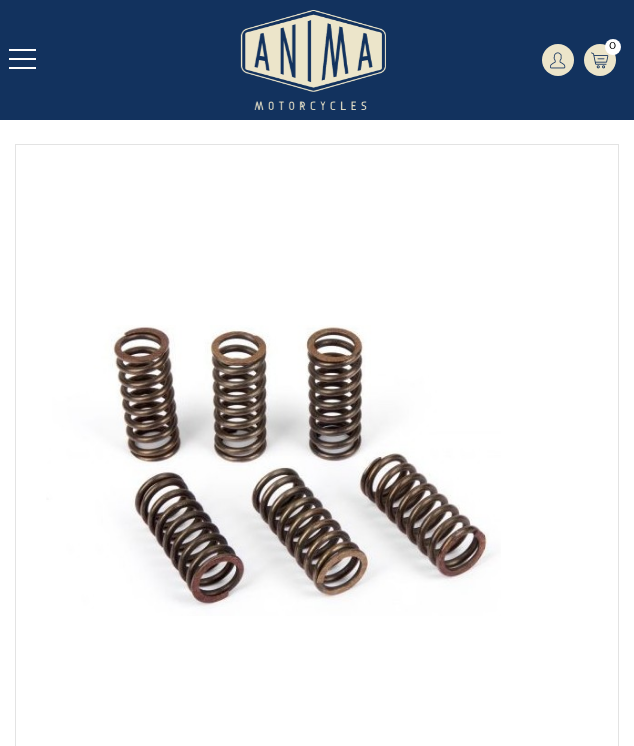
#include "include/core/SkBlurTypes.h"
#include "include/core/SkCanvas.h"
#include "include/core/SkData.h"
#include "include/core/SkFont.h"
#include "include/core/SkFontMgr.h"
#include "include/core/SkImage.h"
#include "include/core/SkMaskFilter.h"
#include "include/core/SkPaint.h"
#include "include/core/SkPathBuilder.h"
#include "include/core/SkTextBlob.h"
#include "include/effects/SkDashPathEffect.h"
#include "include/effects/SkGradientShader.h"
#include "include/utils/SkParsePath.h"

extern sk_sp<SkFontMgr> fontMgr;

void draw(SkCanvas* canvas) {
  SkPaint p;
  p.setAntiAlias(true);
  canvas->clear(SK_ColorWHITE);
  p.setColor(SkColorSetRGB(18, 50, 94));
  canvas->drawRect(SkRect::MakeLTRB(0, 0, 634, 120), p);
  p.setColor(SK_ColorWHITE);
  canvas->drawRect(SkRect::MakeLTRB(9, 49, 36, 51), p);
  canvas->drawRect(SkRect::MakeLTRB(9, 58, 36, 60), p);
  canvas->drawRect(SkRect::MakeLTRB(9, 67, 36, 69), p);
  canvas->drawImageRect(SkImages::DeferredFromEncodedData(SkData::MakeFromFileName("images/1.png")), SkRect::MakeLTRB(240, 10, 386, 110), SkSamplingOptions());
  p.setColor(SkColorSetRGB(236, 229, 202));
  canvas->drawCircle(558, 60, 16, p);
  canvas->drawImageRect(SkImages::DeferredFromEncodedData(SkData::MakeFromFileName("images/2.png")), SkRect::MakeLTRB(550, 52, 566, 69), SkSamplingOptions());
  canvas->drawCircle(600, 60, 16, p);
  canvas->drawImageRect(SkImages::DeferredFromEncodedData(SkData::MakeFromFileName("images/3.png")), SkRect::MakeLTRB(591, 52, 609, 69), SkSamplingOptions());
  p.setColor(SK_ColorWHITE);
  canvas->drawCircle(613, 47, 8, p);
  p.setStyle(SkPaint::kStroke_Style);
  p.setStrokeWidth(1);
  p.setColor(SkColorSetRGB(227, 227, 227));
  canvas->drawRect(SkRect::MakeLTRB(15.5f, 144.5f, 618.5f, 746.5f), p);
  canvas->drawImageRect(SkImages::DeferredFromEncodedData(SkData::MakeFromFileName("images/4.png")), SkRect::MakeLTRB(46, 325, 501, 616), SkSamplingOptions());
  SkFont font1(fontMgr->matchFamilyStyle("Gotham", SkFontStyle::Normal()), 10);
  font1.setSubpixel(true);
  p.setStyle(SkPaint::kFill_Style);
  p.setColor(SK_ColorBLACK);
  canvas->drawString("0", 609, 49, font1, p);
}
